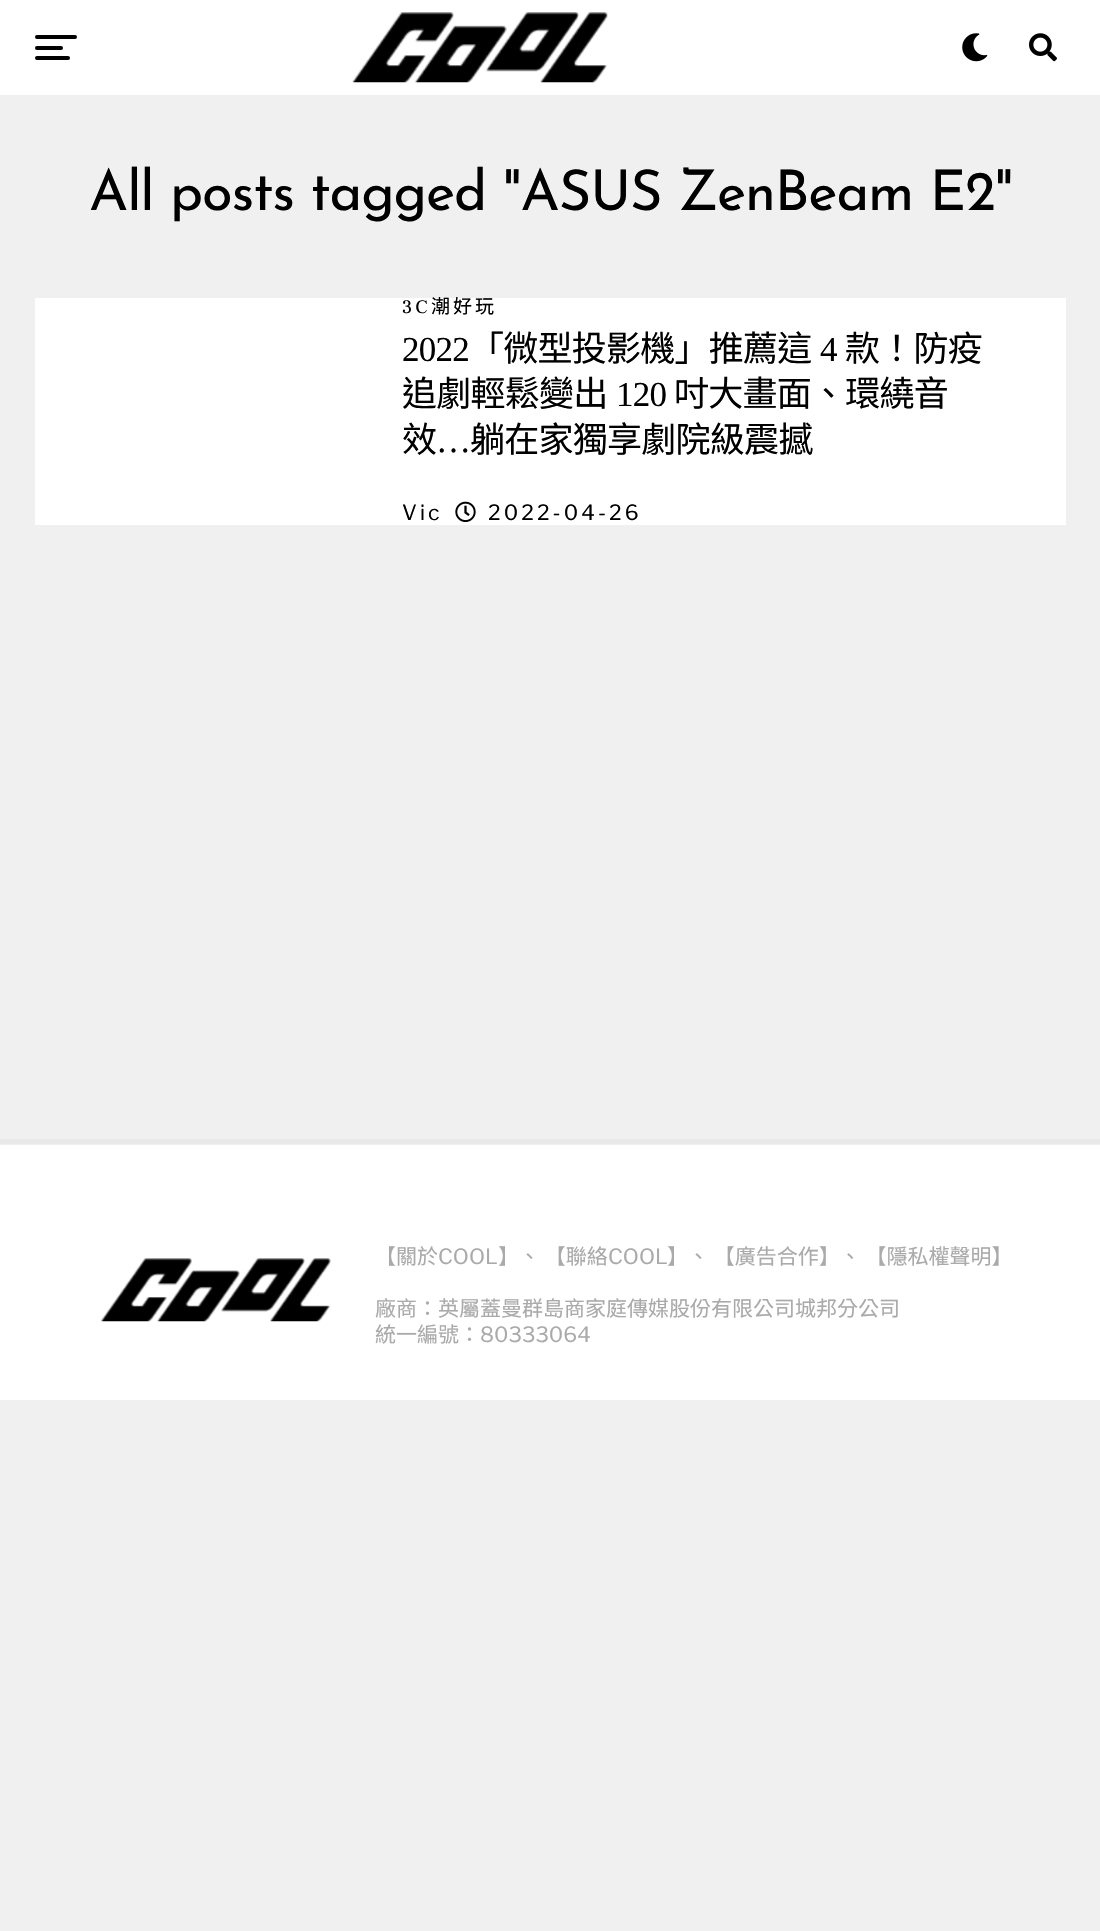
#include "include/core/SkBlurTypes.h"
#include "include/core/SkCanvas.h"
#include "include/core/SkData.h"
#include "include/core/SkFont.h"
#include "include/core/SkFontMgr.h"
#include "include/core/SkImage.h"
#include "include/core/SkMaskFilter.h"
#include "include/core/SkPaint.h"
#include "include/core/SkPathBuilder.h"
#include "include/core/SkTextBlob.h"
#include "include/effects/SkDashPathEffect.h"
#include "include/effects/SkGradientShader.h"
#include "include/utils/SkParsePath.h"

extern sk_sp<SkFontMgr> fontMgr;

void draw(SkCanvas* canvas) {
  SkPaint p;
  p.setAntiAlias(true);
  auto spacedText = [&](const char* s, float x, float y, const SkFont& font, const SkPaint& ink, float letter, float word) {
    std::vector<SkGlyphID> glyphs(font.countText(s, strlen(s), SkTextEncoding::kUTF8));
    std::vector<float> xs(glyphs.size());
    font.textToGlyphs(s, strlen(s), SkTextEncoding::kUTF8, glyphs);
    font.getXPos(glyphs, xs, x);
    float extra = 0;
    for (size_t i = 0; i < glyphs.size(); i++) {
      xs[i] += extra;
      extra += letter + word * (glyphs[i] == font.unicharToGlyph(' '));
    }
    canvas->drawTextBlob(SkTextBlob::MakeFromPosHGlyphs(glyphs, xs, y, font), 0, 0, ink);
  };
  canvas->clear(SkColorSetRGB(240, 240, 240));
  p.setColor(SK_ColorWHITE);
  canvas->drawRect(SkRect::MakeLTRB(0, 0, 1100, 95), p);
  p.setColor(SK_ColorBLACK);
  canvas->drawRoundRect(SkRect::MakeLTRB(35, 35, 77, 39), 2, 2, p);
  canvas->drawRoundRect(SkRect::MakeLTRB(35, 46, 63, 50), 2, 2, p);
  canvas->drawRoundRect(SkRect::MakeLTRB(35, 56, 70, 60), 2, 2, p);
  canvas->drawImageRect(SkImages::DeferredFromEncodedData(SkData::MakeFromFileName("images/1.png")), SkRect::MakeLTRB(352, 12, 608, 83), SkSamplingOptions());
  canvas->drawImageRect(SkImages::DeferredFromEncodedData(SkData::MakeFromFileName("images/2.png")), SkRect::MakeLTRB(962, 33, 988, 62), SkSamplingOptions());
  canvas->drawImageRect(SkImages::DeferredFromEncodedData(SkData::MakeFromFileName("images/3.png")), SkRect::MakeLTRB(1029, 33, 1057, 62), SkSamplingOptions());
  p.setColor(SK_ColorWHITE);
  canvas->drawRect(SkRect::MakeLTRB(35, 298, 1066, 525), p);
  canvas->drawImageRect(SkImages::DeferredFromEncodedData(SkData::MakeFromFileName("images/4.png")), SkRect::MakeLTRB(455, 501, 476, 522), SkSamplingOptions());
  canvas->drawRect(SkRect::MakeLTRB(0, 1145, 1100, 1400), p);
  p.setColor(SkColorSetRGB(233, 233, 233));
  canvas->drawRect(SkRect::MakeLTRB(0, 1139, 1100, 1144), p);
  canvas->drawImageRect(SkImages::DeferredFromEncodedData(SkData::MakeFromFileName("images/5.png")), SkRect::MakeLTRB(101, 1258, 331, 1322), SkSamplingOptions());
  SkFont font1(fontMgr->matchFamilyStyle("Josefin Sans", SkFontStyle::Normal()), 56);
  font1.setSubpixel(true);
  p.setColor(SK_ColorBLACK);
  spacedText("All posts tagged \"ASUS ZenBeam E2\"", 89, 210, font1, p, -1.1f, 0);
  SkFont font2(fontMgr->matchFamilyStyle("Frank Ruhl Libre", SkFontStyle::Normal()), 19);
  font2.setSubpixel(true);
  spacedText("3C", 402, 313, font2, p, 3, 0);
  SkFont font3(fontMgr->matchFamilyStyle("Noto Sans CJK TC", SkFontStyle::Normal()), 19);
  font3.setSubpixel(true);
  spacedText("潮好玩", 431, 313, font3, p, 3, 0);
  SkFont font4(fontMgr->matchFamilyStyle("Liberation Serif", SkFontStyle::Normal()), 35);
  font4.setSubpixel(true);
  spacedText("2022", 402, 361, font4, p, -0.75f, 0);
  SkFont font5(fontMgr->matchFamilyStyle("Noto Sans CJK TC", SkFontStyle::Normal()), 35);
  font5.setSubpixel(true);
  spacedText("「微型投影機」推薦這", 469, 361, font5, p, -0.75f, 0);
  spacedText("4", 820, 361, font4, p, -0.75f, 0);
  spacedText("款！防疫", 845, 361, font5, p, -0.75f, 0);
  spacedText("追劇輕鬆變出", 402, 406, font5, p, -0.75f, 0);
  spacedText("120", 616, 406, font4, p, -0.75f, 0);
  spacedText("吋大畫面、環繞音", 674, 406, font5, p, -0.75f, 0);
  spacedText("效", 402, 452, font5, p, -0.75f, 0);
  spacedText("…", 436, 452, font4, p, -0.75f, 0);
  spacedText("躺在家獨享劇院級震撼", 470, 452, font5, p, -0.75f, 0);
  SkFont font6(fontMgr->matchFamilyStyle("Libre Franklin", SkFontStyle::Normal()), 21);
  font6.setSubpixel(true);
  spacedText("Vic", 402, 520, font6, p, 3.1f, 0);
  spacedText("2022-04-26", 488, 520, font6, p, 3.1f, 0);
  SkFont font7(fontMgr->matchFamilyStyle("Noto Sans CJK TC", SkFontStyle::Normal()), 21);
  font7.setSubpixel(true);
  p.setColor(SkColorSetRGB(170, 170, 170));
  canvas->drawString("【關於", 375, 1264, font7, p);
  canvas->drawString("COOL", 438, 1264, font6, p);
  canvas->drawString("】、 【聯絡", 498, 1264, font7, p);
  canvas->drawString("COOL", 608, 1264, font6, p);
  canvas->drawString("】、 【廣告合作】、 【隱私權聲明】", 667, 1264, font7, p);
  canvas->drawString("廠商：英屬蓋曼群島商家庭傳媒股份有限公司城邦分公司", 375, 1316, font7, p);
  canvas->drawString("統一編號：", 375, 1342, font7, p);
  canvas->drawString("80333064", 480, 1342, font6, p);
}
